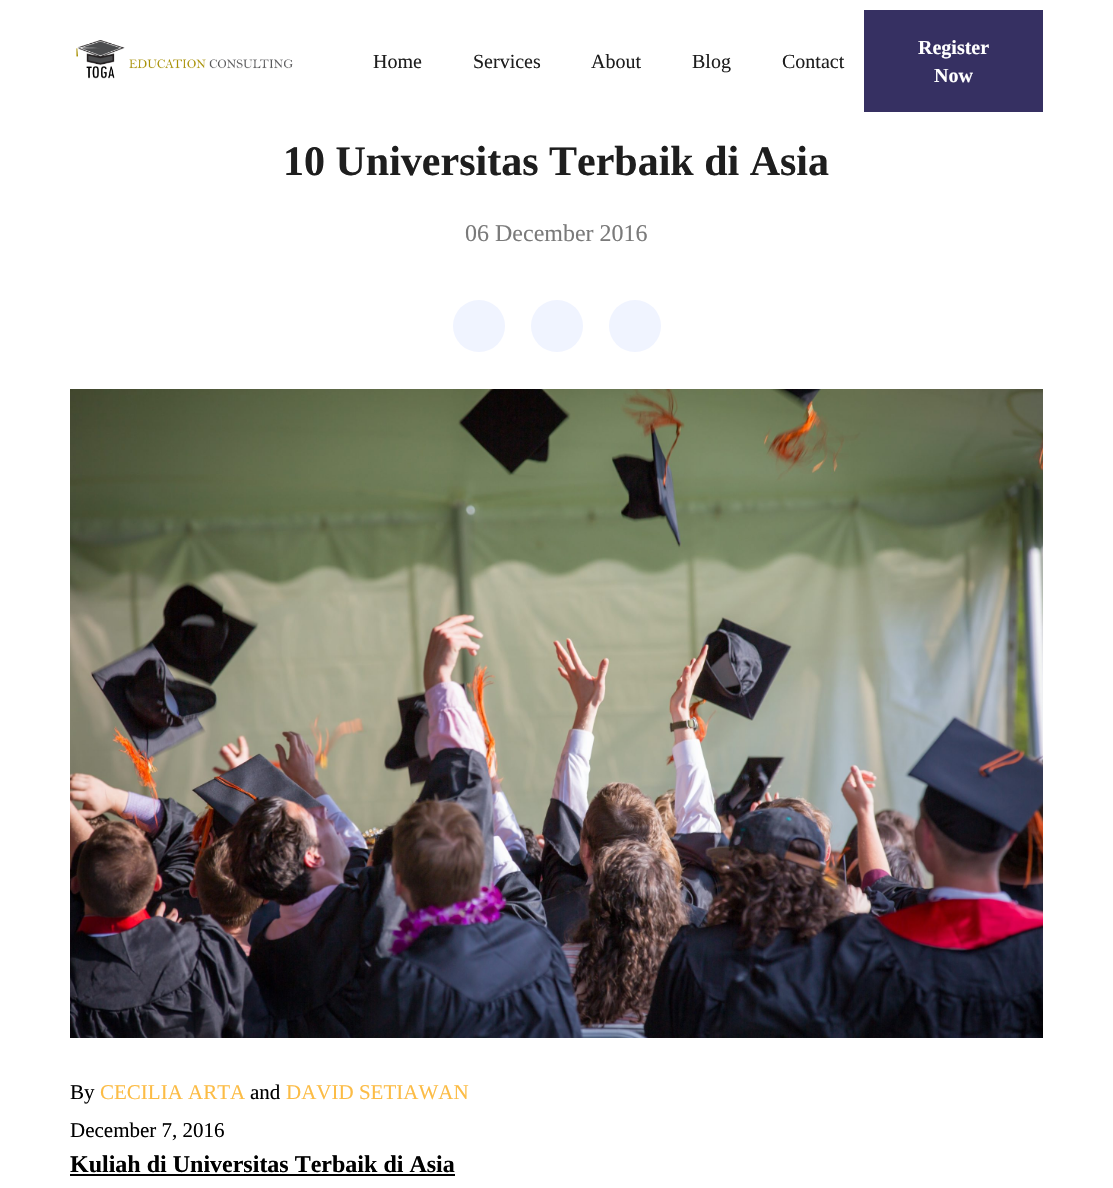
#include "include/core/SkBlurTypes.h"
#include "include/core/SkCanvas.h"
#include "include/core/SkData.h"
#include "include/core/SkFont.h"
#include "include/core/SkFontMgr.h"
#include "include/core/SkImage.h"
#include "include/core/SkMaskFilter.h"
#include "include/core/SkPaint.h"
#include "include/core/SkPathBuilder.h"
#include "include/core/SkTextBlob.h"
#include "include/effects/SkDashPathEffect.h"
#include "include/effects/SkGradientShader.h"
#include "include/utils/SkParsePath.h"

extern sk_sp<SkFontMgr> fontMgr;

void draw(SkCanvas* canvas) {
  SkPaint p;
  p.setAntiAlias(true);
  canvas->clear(SK_ColorWHITE);
  canvas->drawImageRect(SkImages::DeferredFromEncodedData(SkData::MakeFromFileName("images/1.png")), SkRect::MakeLTRB(76, 40, 293, 79), SkSamplingOptions());
  p.setColor(SkColorSetRGB(54, 48, 98));
  canvas->drawRect(SkRect::MakeLTRB(864, 10, 1043, 112), p);
  p.setColor(SkColorSetRGB(240, 244, 255));
  canvas->drawCircle(479, 326, 26, p);
  canvas->drawCircle(557, 326, 26, p);
  canvas->drawCircle(635, 326, 26, p);
  canvas->drawImageRect(SkImages::DeferredFromEncodedData(SkData::MakeFromFileName("images/2.png")), SkRect::MakeLTRB(70, 389, 1043, 1038), SkSamplingOptions());
  p.setColor(SK_ColorBLACK);
  canvas->drawRect(SkRect::MakeLTRB(70, 1174, 455, 1176), p);
  SkFont font1(fontMgr->matchFamilyStyle("Liberation Serif", SkFontStyle::Normal()), 20);
  font1.setSubpixel(true);
  p.setColor(SkColorSetRGB(30, 30, 30));
  canvas->drawString("Home", 373, 68, font1, p);
  canvas->drawString("Services", 473, 68, font1, p);
  canvas->drawString("About", 591, 68, font1, p);
  canvas->drawString("Blog", 692, 68, font1, p);
  canvas->drawString("Contact", 782, 68, font1, p);
  SkFont font2(fontMgr->matchFamilyStyle("Liberation Serif", SkFontStyle::Bold()), 20);
  font2.setSubpixel(true);
  p.setColor(SK_ColorWHITE);
  canvas->drawString("Register", 918, 54, font2, p);
  canvas->drawString("Now", 934, 82, font2, p);
  SkFont font3(fontMgr->matchFamilyStyle("Liberation Serif", SkFontStyle::Bold()), 42);
  font3.setSubpixel(true);
  p.setColor(SkColorSetRGB(30, 30, 30));
  canvas->drawString("10 Universitas Terbaik di Asia", 283, 175, font3, p);
  SkFont font4(fontMgr->matchFamilyStyle("Liberation Serif", SkFontStyle::Normal()), 24);
  font4.setSubpixel(true);
  p.setColor(SkColorSetRGB(122, 122, 122));
  canvas->drawString("06 December 2016", 465, 241, font4, p);
  SkFont font5(fontMgr->matchFamilyStyle("Liberation Serif", SkFontStyle::Normal()), 21);
  font5.setSubpixel(true);
  p.setColor(SK_ColorBLACK);
  canvas->drawString("By", 70, 1099, font5, p);
  p.setColor(SkColorSetRGB(252, 188, 69));
  canvas->drawString("CECILIA ARTA", 100, 1099, font5, p);
  p.setColor(SK_ColorBLACK);
  canvas->drawString("and", 250, 1099, font5, p);
  p.setColor(SkColorSetRGB(252, 188, 69));
  canvas->drawString("DAVID SETIAWAN", 286, 1099, font5, p);
  p.setColor(SK_ColorBLACK);
  canvas->drawString("December 7, 2016", 70, 1137, font5, p);
  SkFont font6(fontMgr->matchFamilyStyle("Liberation Serif", SkFontStyle::Bold()), 24);
  font6.setSubpixel(true);
  canvas->drawString("Kuliah di Universitas Terbaik di Asia", 70, 1172, font6, p);
}
